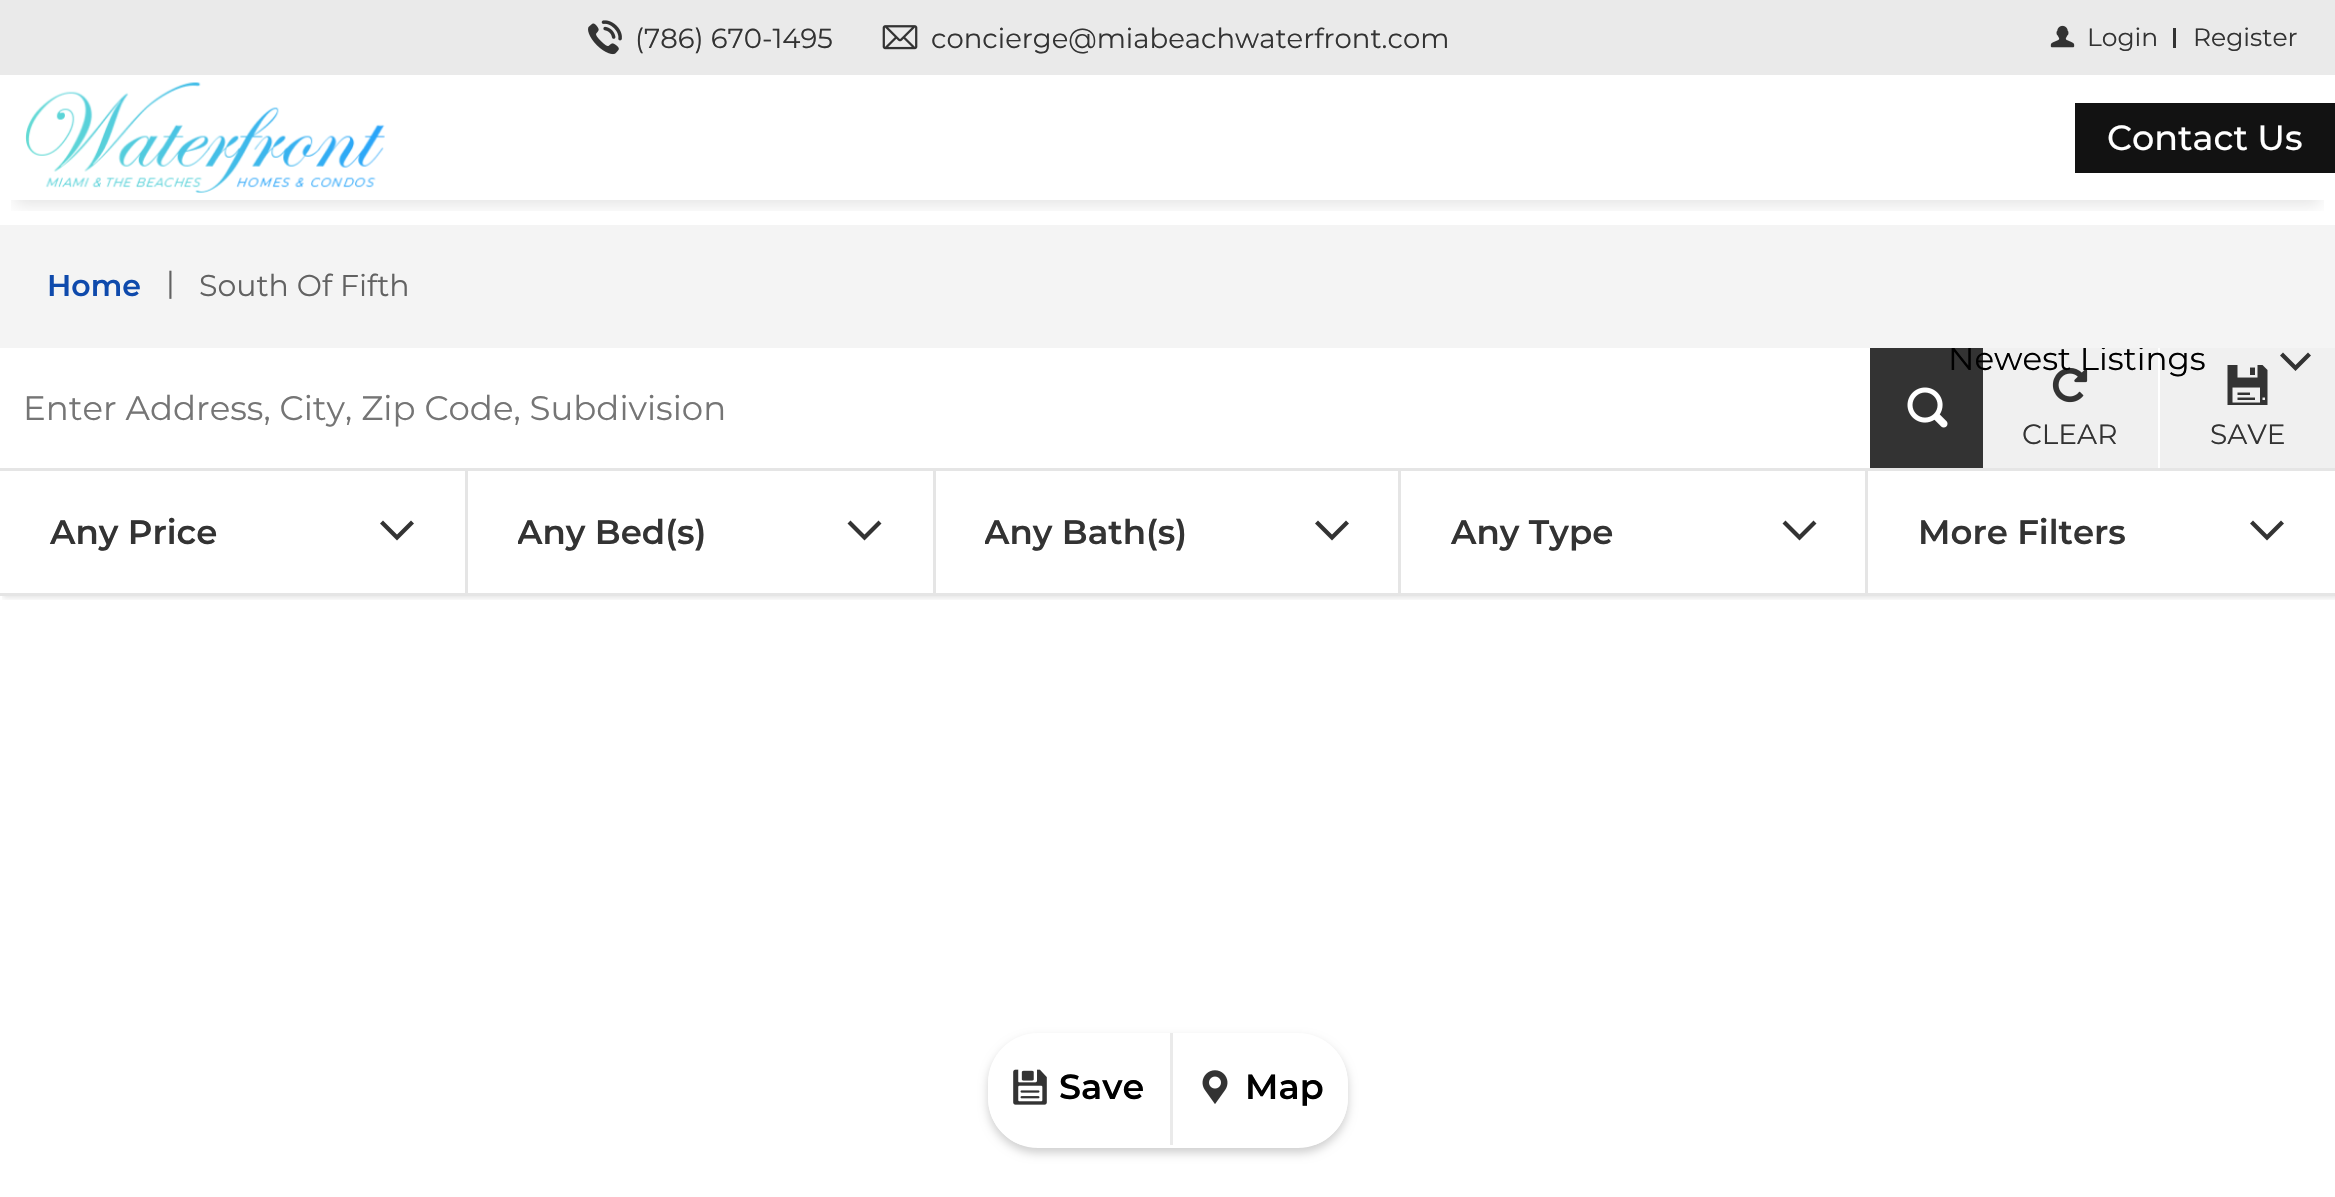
#include "include/core/SkBlurTypes.h"
#include "include/core/SkCanvas.h"
#include "include/core/SkData.h"
#include "include/core/SkFont.h"
#include "include/core/SkFontMgr.h"
#include "include/core/SkImage.h"
#include "include/core/SkMaskFilter.h"
#include "include/core/SkPaint.h"
#include "include/core/SkPathBuilder.h"
#include "include/core/SkTextBlob.h"
#include "include/effects/SkDashPathEffect.h"
#include "include/effects/SkGradientShader.h"
#include "include/utils/SkParsePath.h"

extern sk_sp<SkFontMgr> fontMgr;

void draw(SkCanvas* canvas) {
  SkPaint p;
  p.setAntiAlias(true);
  canvas->clear(SK_ColorWHITE);
  canvas->save();
  canvas->clipRect(SkRect::MakeLTRB(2, 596, 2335, 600));
  p.setColor(SkColorSetARGB(26, 0, 0, 0));
  p.setMaskFilter(SkMaskFilter::MakeBlur(kNormal_SkBlurStyle, 2.5f));
  canvas->drawRect(SkRect::MakeLTRB(3, 348, 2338, 598), p);
  p.setMaskFilter(nullptr);
  canvas->restore();
  p.setColor(SkColorSetRGB(240, 240, 240));
  canvas->drawRect(SkRect::MakeLTRB(2160, 348, 2335, 468), p);
  p.setColor(SkColorSetRGB(51, 51, 51));
  canvas->drawPath(SkPathBuilder().moveTo(2311, 355.5f).lineTo(2295.5f, 371).lineTo(2280, 355.5f).lineTo(2283, 352.5f).lineTo(2295.5f, 365).lineTo(2308, 352.5f).close().detach(), p);
  canvas->save();
  canvas->clipPath(SkPathBuilder(SkPathFillType::kEvenOdd).moveTo(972, 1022).lineTo(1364, 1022).lineTo(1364, 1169).lineTo(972, 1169).close().moveTo(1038, 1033).lineTo(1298, 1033).cubicTo(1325.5f, 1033, 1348, 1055.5f, 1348, 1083).lineTo(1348, 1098).cubicTo(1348, 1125.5f, 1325.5f, 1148, 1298, 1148).lineTo(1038, 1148).cubicTo(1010.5f, 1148, 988, 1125.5f, 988, 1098).lineTo(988, 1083).cubicTo(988, 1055.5f, 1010.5f, 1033, 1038, 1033).close().detach(), true);
  p.setColor(SkColorSetARGB(48, 0, 0, 0));
  p.setMaskFilter(SkMaskFilter::MakeBlur(kNormal_SkBlurStyle, 5));
  canvas->drawRoundRect(SkRect::MakeLTRB(988, 1038, 1348, 1153), 50, 50, p);
  p.setMaskFilter(nullptr);
  canvas->restore();
  canvas->save();
  canvas->clipPath(SkPathBuilder().moveTo(1038, 1033).lineTo(1298, 1033).cubicTo(1325.5f, 1033, 1348, 1055.5f, 1348, 1083).lineTo(1348, 1098).cubicTo(1348, 1125.5f, 1325.5f, 1148, 1298, 1148).lineTo(1038, 1148).cubicTo(1010.5f, 1148, 988, 1125.5f, 988, 1098).lineTo(988, 1083).cubicTo(988, 1055.5f, 1010.5f, 1033, 1038, 1033).close().detach(), true);
  p.setColor(SK_ColorWHITE);
  canvas->drawPath(SkPathBuilder().moveTo(1038, 1033).lineTo(1170, 1033).lineTo(1170, 1145).lineTo(988, 1145).lineTo(988, 1083).cubicTo(988, 1055.5f, 1010.5f, 1033, 1038, 1033).close().detach(), p);
  canvas->restore();
  canvas->drawImageRect(SkImages::DeferredFromEncodedData(SkData::MakeFromFileName("images/5.png")), SkRect::MakeLTRB(1013, 1069, 1047, 1105), SkSamplingOptions());
  canvas->save();
  canvas->clipPath(SkPathBuilder().moveTo(1038, 1033).lineTo(1298, 1033).cubicTo(1325.5f, 1033, 1348, 1055.5f, 1348, 1083).lineTo(1348, 1098).cubicTo(1348, 1125.5f, 1325.5f, 1148, 1298, 1148).lineTo(1038, 1148).cubicTo(1010.5f, 1148, 988, 1125.5f, 988, 1098).lineTo(988, 1083).cubicTo(988, 1055.5f, 1010.5f, 1033, 1038, 1033).close().detach(), true);
  canvas->drawPath(SkPathBuilder().moveTo(1170, 1033).lineTo(1298, 1033).cubicTo(1325.5f, 1033, 1348, 1055.5f, 1348, 1083).lineTo(1348, 1145).lineTo(1170, 1145).close().detach(), p);
  canvas->restore();
  p.setColor(SkColorSetRGB(234, 234, 234));
  canvas->drawRect(SkRect::MakeLTRB(1170, 1033, 1173, 1145), p);
  canvas->drawImageRect(SkImages::DeferredFromEncodedData(SkData::MakeFromFileName("images/6.png")), SkRect::MakeLTRB(1202, 1070, 1228, 1104), SkSamplingOptions());
  p.setColor(SkColorSetRGB(229, 229, 229));
  canvas->drawRect(SkRect::MakeLTRB(0, 468, 2335, 471), p);
  p.setColor(SkColorSetRGB(51, 51, 51));
  canvas->drawRect(SkRect::MakeLTRB(1870, 348, 1983, 468), p);
  canvas->drawImageRect(SkImages::DeferredFromEncodedData(SkData::MakeFromFileName("images/7.png")), SkRect::MakeLTRB(1907, 387, 1948, 428), SkSamplingOptions());
  p.setColor(SkColorSetRGB(240, 240, 240));
  canvas->drawRect(SkRect::MakeLTRB(1983, 348, 2158, 468), p);
  canvas->drawImageRect(SkImages::DeferredFromEncodedData(SkData::MakeFromFileName("images/8.png")), SkRect::MakeLTRB(2052, 367, 2088, 403), SkSamplingOptions());
  canvas->drawImageRect(SkImages::DeferredFromEncodedData(SkData::MakeFromFileName("images/9.png")), SkRect::MakeLTRB(2227, 365, 2268, 405), SkSamplingOptions());
  p.setColor(SkColorSetRGB(229, 229, 229));
  canvas->drawRect(SkRect::MakeLTRB(0, 593, 2335, 596), p);
  canvas->drawRect(SkRect::MakeLTRB(465, 470, 468, 593), p);
  p.setColor(SkColorSetRGB(51, 51, 51));
  canvas->drawPath(SkPathBuilder().moveTo(414, 523.5f).lineTo(397, 540.5f).lineTo(380, 523.5f).lineTo(383, 520.5f).lineTo(397, 534.5f).lineTo(411, 520.5f).close().detach(), p);
  p.setColor(SkColorSetRGB(229, 229, 229));
  canvas->drawRect(SkRect::MakeLTRB(933, 470, 936, 593), p);
  p.setColor(SkColorSetRGB(51, 51, 51));
  canvas->drawPath(SkPathBuilder().moveTo(881.5f, 523.5f).lineTo(864.5f, 540.5f).lineTo(847.5f, 523.5f).lineTo(850.5f, 520.5f).lineTo(864.5f, 534.5f).lineTo(878.5f, 520.5f).close().detach(), p);
  p.setColor(SkColorSetRGB(229, 229, 229));
  canvas->drawRect(SkRect::MakeLTRB(1398, 470, 1401, 593), p);
  p.setColor(SkColorSetRGB(51, 51, 51));
  canvas->drawPath(SkPathBuilder().moveTo(1349, 523.5f).lineTo(1332, 540.5f).lineTo(1315, 523.5f).lineTo(1318, 520.5f).lineTo(1332, 534.5f).lineTo(1346, 520.5f).close().detach(), p);
  p.setColor(SkColorSetRGB(229, 229, 229));
  canvas->drawRect(SkRect::MakeLTRB(1865, 470, 1868, 593), p);
  p.setColor(SkColorSetRGB(51, 51, 51));
  canvas->drawPath(SkPathBuilder().moveTo(1816.5f, 523.5f).lineTo(1799.5f, 540.5f).lineTo(1782.5f, 523.5f).lineTo(1785.5f, 520.5f).lineTo(1799.5f, 534.5f).lineTo(1813.5f, 520.5f).close().detach(), p);
  canvas->drawPath(SkPathBuilder().moveTo(2284, 523.5f).lineTo(2267, 540.5f).lineTo(2250, 523.5f).lineTo(2253, 520.5f).lineTo(2267, 534.5f).lineTo(2281, 520.5f).close().detach(), p);
  SkFont font1(fontMgr->matchFamilyStyle("Montserrat", SkFontStyle::Normal()), 32.5f);
  font1.setSubpixel(true);
  p.setColor(SK_ColorBLACK);
  canvas->drawString("Newest Listings", 1948, 370, font1, p);
  p.setColor(SkColorSetRGB(244, 244, 244));
  canvas->drawRect(SkRect::MakeLTRB(0, 225, 2335, 348), p);
  canvas->save();
  canvas->clipRect(SkRect::MakeLTRB(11, 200, 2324, 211));
  p.setColor(SkColorSetARGB(26, 0, 0, 0));
  p.setMaskFilter(SkMaskFilter::MakeBlur(kNormal_SkBlurStyle, 7.5f));
  canvas->drawRect(SkRect::MakeLTRB(15, 35, 2320, 205), p);
  p.setMaskFilter(nullptr);
  canvas->restore();
  p.setColor(SkColorSetRGB(18, 18, 18));
  canvas->drawRect(SkRect::MakeLTRB(2075, 103, 2335, 173), p);
  SkFont font2(fontMgr->matchFamilyStyle("Montserrat", SkFontStyle(500, SkFontStyle::kNormal_Width, SkFontStyle::kUpright_Slant)), 35);
  font2.setSubpixel(true);
  p.setColor(SK_ColorWHITE);
  canvas->drawString("Contact Us", 2107, 150, font2, p);
  p.setColor(SkColorSetRGB(234, 234, 234));
  canvas->drawRect(SkRect::MakeLTRB(0, 0, 2335, 75), p);
  SkFont font3(fontMgr->matchFamilyStyle("Montserrat", SkFontStyle::Normal()), 25);
  font3.setSubpixel(true);
  p.setColor(SkColorSetRGB(51, 51, 51));
  canvas->drawString("Register", 2193, 46, font3, p);
  canvas->drawRect(SkRect::MakeLTRB(2173, 28, 2176, 48), p);
  canvas->drawString("Login", 2087, 46, font3, p);
  canvas->drawImageRect(SkImages::DeferredFromEncodedData(SkData::MakeFromFileName("images/3.png")), SkRect::MakeLTRB(2050, 25, 2075, 48), SkSamplingOptions());
  SkFont font4(fontMgr->matchFamilyStyle("Montserrat", SkFontStyle::Normal()), 27.5f);
  font4.setSubpixel(true);
  canvas->drawString("concierge@miabeachwaterfront.com", 931, 48, font4, p);
  canvas->drawImageRect(SkImages::DeferredFromEncodedData(SkData::MakeFromFileName("images/2.png")), SkRect::MakeLTRB(882, 25, 918, 50), SkSamplingOptions());
  canvas->drawString("(786) 670-1495", 635, 48, font4, p);
  canvas->drawImageRect(SkImages::DeferredFromEncodedData(SkData::MakeFromFileName("images/1.png")), SkRect::MakeLTRB(588, 20, 622, 55), SkSamplingOptions());
  canvas->drawImageRect(SkImages::DeferredFromEncodedData(SkData::MakeFromFileName("images/4.png")), SkRect::MakeLTRB(25, 82, 385, 193), SkSamplingOptions());
  SkFont font5(fontMgr->matchFamilyStyle("Montserrat", SkFontStyle::Normal()), 30);
  font5.setSubpixel(true);
  p.setColor(SkColorSetRGB(98, 98, 98));
  canvas->drawString("South Of Fifth", 199, 296, font5, p);
  canvas->drawString("|", 166, 293, font5, p);
  SkFont font6(fontMgr->matchFamilyStyle("Montserrat", SkFontStyle(600, SkFontStyle::kNormal_Width, SkFontStyle::kUpright_Slant)), 30);
  font6.setSubpixel(true);
  p.setColor(SkColorSetRGB(15, 74, 172));
  canvas->drawString("Home", 47, 296, font6, p);
  SkFont font7(fontMgr->matchFamilyStyle("Montserrat", SkFontStyle(600, SkFontStyle::kNormal_Width, SkFontStyle::kUpright_Slant)), 35);
  font7.setSubpixel(true);
  p.setColor(SK_ColorBLACK);
  canvas->drawString("Save", 1059, 1099, font7, p);
  canvas->drawString("Map", 1245, 1099, font7, p);
  SkFont font8(fontMgr->matchFamilyStyle("Montserrat", SkFontStyle::Normal()), 34);
  font8.setSubpixel(true);
  p.setColor(SkColorSetRGB(117, 117, 117));
  canvas->drawString("Enter Address, City, Zip Code, Subdivision", 23, 420, font8, p);
  SkFont font9(fontMgr->matchFamilyStyle("Montserrat", SkFontStyle::Normal()), 28);
  font9.setSubpixel(true);
  p.setColor(SkColorSetRGB(51, 51, 51));
  canvas->drawString("CLEAR", 2022, 444, font9, p);
  canvas->drawString("SAVE", 2210, 444, font9, p);
  SkFont font10(fontMgr->matchFamilyStyle("Montserrat", SkFontStyle(600, SkFontStyle::kNormal_Width, SkFontStyle::kUpright_Slant)), 34);
  font10.setSubpixel(true);
  canvas->drawString("Any Price", 50, 544, font10, p);
  canvas->save();
  canvas->clipRect(SkRect::MakeLTRB(518, 513, 708, 553));
  canvas->drawString("Any Bed(s)", 517, 544, font10, p);
  canvas->restore();
  canvas->save();
  canvas->clipRect(SkRect::MakeLTRB(985, 513, 1188, 553));
  canvas->drawString("Any Bath(s)", 984, 544, font10, p);
  canvas->restore();
  canvas->drawString("Any Type", 1451, 544, font10, p);
  canvas->drawString("More Filters", 1918, 544, font10, p);
}
